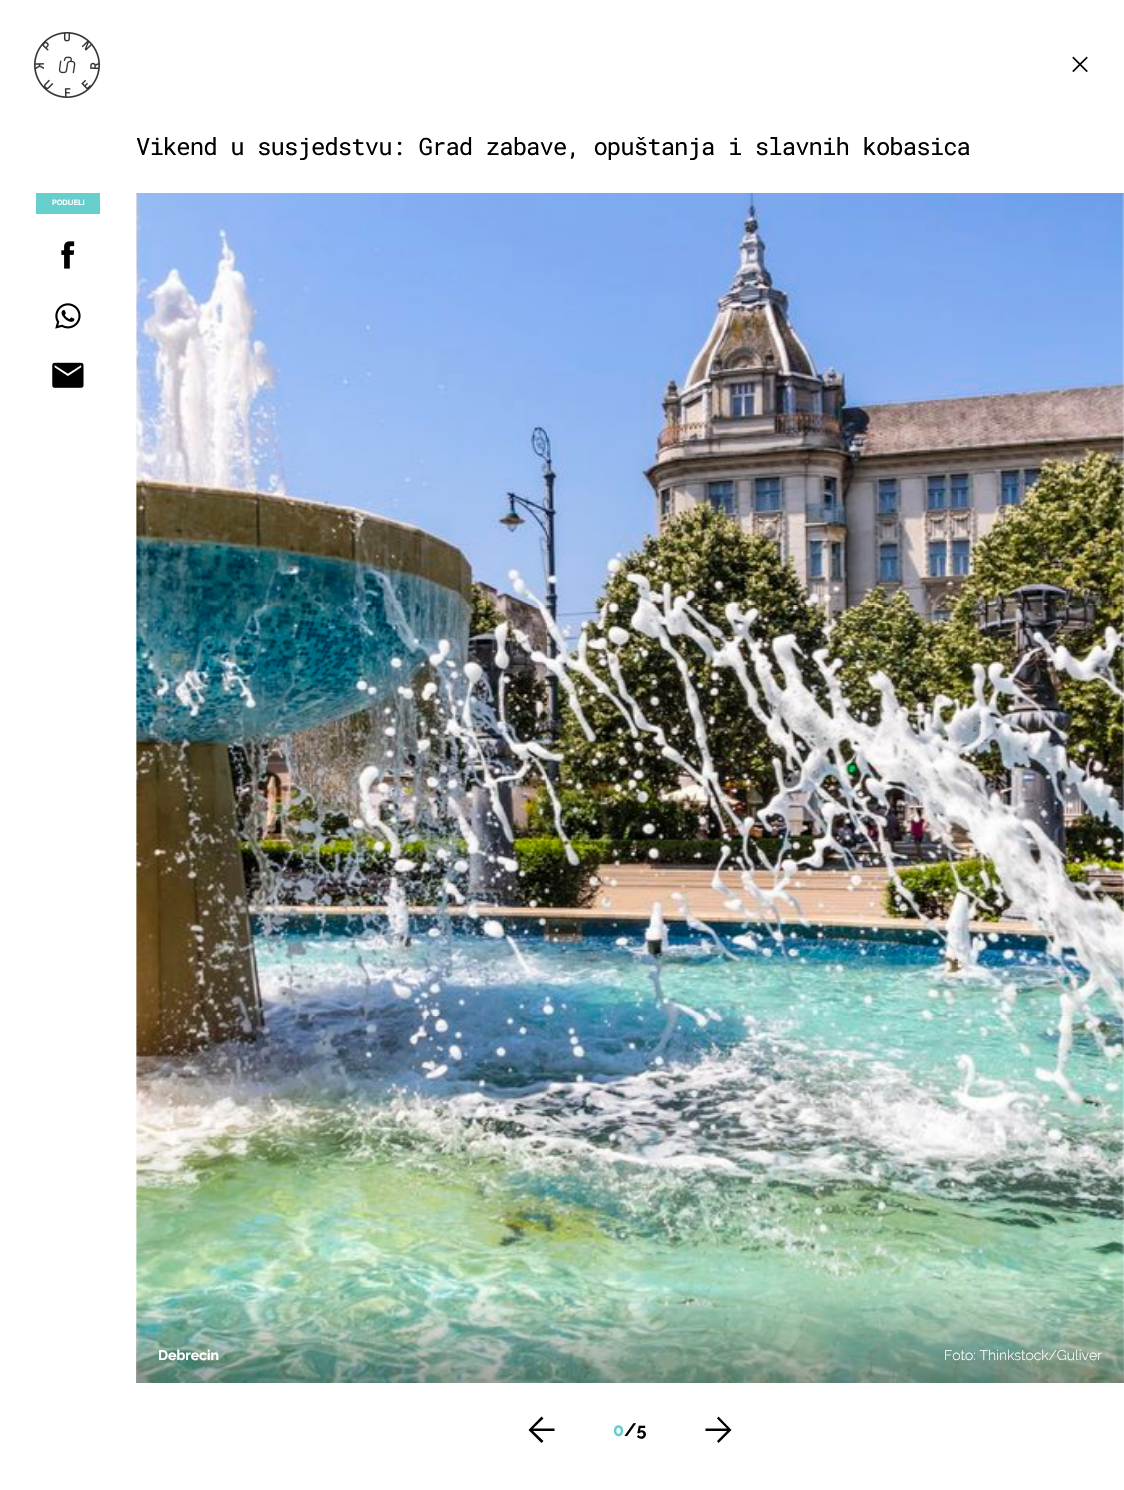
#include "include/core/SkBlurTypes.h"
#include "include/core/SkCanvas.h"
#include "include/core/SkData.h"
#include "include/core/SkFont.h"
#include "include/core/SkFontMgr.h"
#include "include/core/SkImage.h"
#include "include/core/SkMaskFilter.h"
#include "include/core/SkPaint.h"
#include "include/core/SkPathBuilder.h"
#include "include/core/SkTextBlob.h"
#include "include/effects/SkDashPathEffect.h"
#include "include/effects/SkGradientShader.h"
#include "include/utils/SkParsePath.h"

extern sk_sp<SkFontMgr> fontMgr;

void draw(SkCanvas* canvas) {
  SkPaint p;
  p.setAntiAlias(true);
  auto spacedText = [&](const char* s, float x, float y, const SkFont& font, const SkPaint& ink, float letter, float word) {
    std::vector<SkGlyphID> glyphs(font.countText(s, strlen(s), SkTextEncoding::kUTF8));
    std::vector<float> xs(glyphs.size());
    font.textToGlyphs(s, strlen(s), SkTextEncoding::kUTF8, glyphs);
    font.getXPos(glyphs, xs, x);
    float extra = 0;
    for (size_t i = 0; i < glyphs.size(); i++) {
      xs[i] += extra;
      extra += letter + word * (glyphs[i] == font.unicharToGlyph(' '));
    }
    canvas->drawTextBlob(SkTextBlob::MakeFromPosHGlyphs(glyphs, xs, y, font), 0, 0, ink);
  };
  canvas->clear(SK_ColorWHITE);
  canvas->drawImageRect(SkImages::DeferredFromEncodedData(SkData::MakeFromFileName("images/1.png")), SkRect::MakeLTRB(34, 32, 100, 98), SkSamplingOptions());
  canvas->drawImageRect(SkImages::DeferredFromEncodedData(SkData::MakeFromFileName("images/2.png")), SkRect::MakeLTRB(1072, 56, 1088, 73), SkSamplingOptions());
  p.setColor(SkColorSetRGB(100, 207, 204));
  canvas->drawRect(SkRect::MakeLTRB(36, 193, 100, 214), p);
  canvas->drawImageRect(SkImages::DeferredFromEncodedData(SkData::MakeFromFileName("images/3.png")), SkRect::MakeLTRB(61, 241, 75, 269), SkSamplingOptions());
  canvas->drawImageRect(SkImages::DeferredFromEncodedData(SkData::MakeFromFileName("images/4.png")), SkRect::MakeLTRB(55, 303, 81, 329), SkSamplingOptions());
  canvas->drawImageRect(SkImages::DeferredFromEncodedData(SkData::MakeFromFileName("images/5.png")), SkRect::MakeLTRB(52, 362, 84, 388), SkSamplingOptions());
  canvas->drawImageRect(SkImages::DeferredFromEncodedData(SkData::MakeFromFileName("images/6.png")), SkRect::MakeLTRB(136, 193, 1124, 1383), SkSamplingOptions());
  {
    const SkColor colors[] = {SkColorSetARGB(102, 20, 20, 20), SkColorSetARGB(0, 20, 20, 20)};
    const float stops[] = {0, 1};
    const SkPoint ends[] = {{630, 1383}, {630, 1285}};
    p.setShader(SkGradientShader::MakeLinear(ends, colors, stops, 2, SkTileMode::kClamp));
    p.setAlpha(255);
  }
  canvas->drawRect(SkRect::MakeLTRB(136, 1290, 1124, 1383), p);
  p.setShader(nullptr);
  p.setColor(SK_ColorBLACK);
  canvas->drawPath(SkPathBuilder().moveTo(541.5f, 1443).lineTo(543.5f, 1441).lineTo(533, 1431).lineTo(554.5f, 1431).lineTo(554.5f, 1428.5f).lineTo(533, 1428.5f).lineTo(543.5f, 1418.5f).lineTo(541.5f, 1416.5f).lineTo(528.5f, 1430).close().detach(), p);
  canvas->drawPath(SkPathBuilder().moveTo(718.5f, 1443).lineTo(717, 1441).lineTo(727, 1431).lineTo(705.5f, 1431).lineTo(705.5f, 1428.5f).lineTo(727, 1428.5f).lineTo(717, 1418.5f).lineTo(718.5f, 1416.5f).lineTo(731.5f, 1430).close().detach(), p);
  SkFont font1(fontMgr->matchFamilyStyle("Roboto Mono", SkFontStyle::Normal()), 24);
  font1.setSubpixel(true);
  spacedText("Vikend u susjedstvu: Grad zabave, opuštanja i slavnih kobasica", 136, 155, font1, p, -0.95f, 0);
  SkFont font2(fontMgr->matchFamilyStyle("Raleway", SkFontStyle::Bold()), 7.5f);
  font2.setSubpixel(true);
  p.setColor(SK_ColorWHITE);
  canvas->drawString("PODIJELI", 52, 205, font2, p);
  SkFont font3(fontMgr->matchFamilyStyle("Raleway", SkFontStyle::Bold()), 14);
  font3.setSubpixel(true);
  canvas->drawString("Debrecin", 158, 1360, font3, p);
  SkFont font4(fontMgr->matchFamilyStyle("Raleway", SkFontStyle(300, SkFontStyle::kNormal_Width, SkFontStyle::kUpright_Slant)), 14);
  font4.setSubpixel(true);
  canvas->drawString("Foto: Thinkstock/Guliver", 944, 1360, font4, p);
  SkFont font5(fontMgr->matchFamilyStyle("Raleway", SkFontStyle::Bold()), 18);
  font5.setSubpixel(true);
  p.setColor(SkColorSetRGB(100, 207, 204));
  canvas->drawString("0", 613, 1436, font5, p);
  p.setColor(SK_ColorBLACK);
  canvas->drawString("/5", 624, 1436, font5, p);
}
